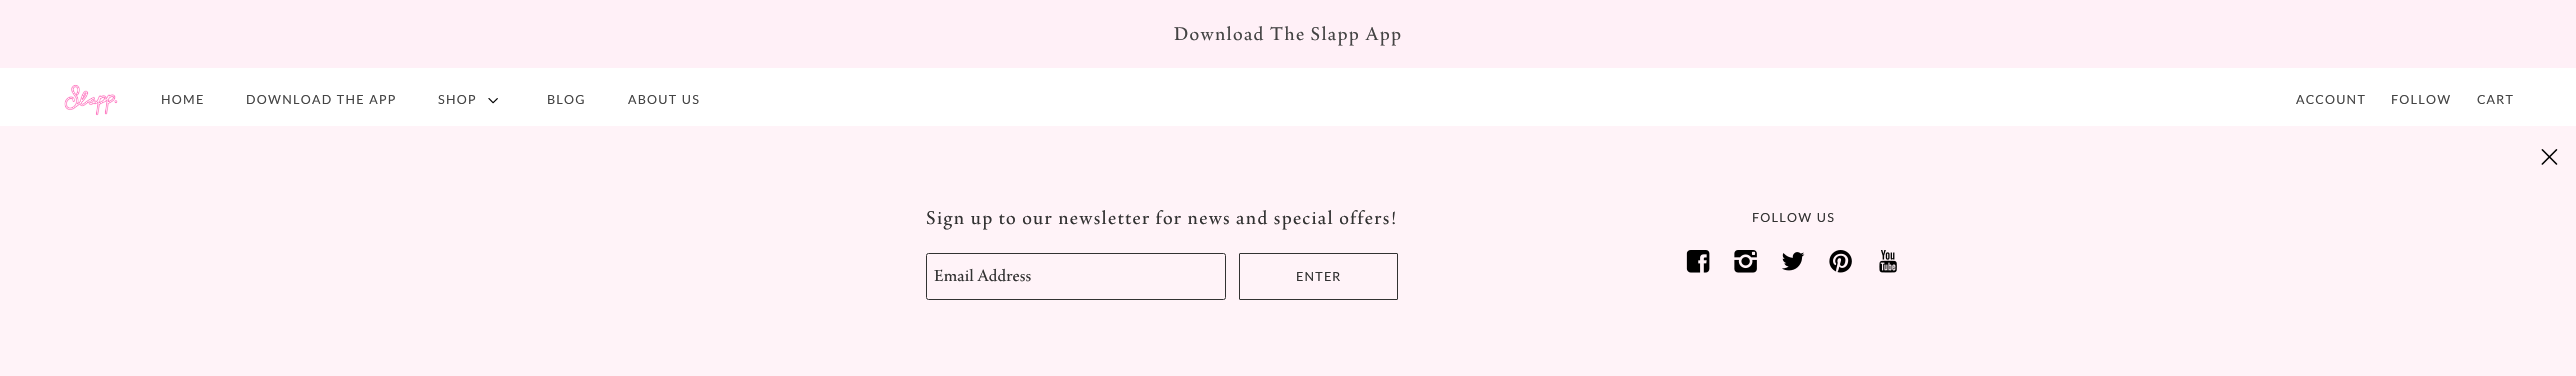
#include "include/core/SkBlurTypes.h"
#include "include/core/SkCanvas.h"
#include "include/core/SkData.h"
#include "include/core/SkFont.h"
#include "include/core/SkFontMgr.h"
#include "include/core/SkImage.h"
#include "include/core/SkMaskFilter.h"
#include "include/core/SkPaint.h"
#include "include/core/SkPathBuilder.h"
#include "include/core/SkTextBlob.h"
#include "include/effects/SkDashPathEffect.h"
#include "include/effects/SkGradientShader.h"
#include "include/utils/SkParsePath.h"

extern sk_sp<SkFontMgr> fontMgr;

void draw(SkCanvas* canvas) {
  SkPaint p;
  p.setAntiAlias(true);
  auto spacedText = [&](const char* s, float x, float y, const SkFont& font, const SkPaint& ink, float letter, float word) {
    std::vector<SkGlyphID> glyphs(font.countText(s, strlen(s), SkTextEncoding::kUTF8));
    std::vector<float> xs(glyphs.size());
    font.textToGlyphs(s, strlen(s), SkTextEncoding::kUTF8, glyphs);
    font.getXPos(glyphs, xs, x);
    float extra = 0;
    for (size_t i = 0; i < glyphs.size(); i++) {
      xs[i] += extra;
      extra += letter + word * (glyphs[i] == font.unicharToGlyph(' '));
    }
    canvas->drawTextBlob(SkTextBlob::MakeFromPosHGlyphs(glyphs, xs, y, font), 0, 0, ink);
  };
  canvas->clear(SK_ColorWHITE);
  p.setColor(SkColorSetRGB(255, 240, 247));
  canvas->drawRect(SkRect::MakeLTRB(0, 0, 2576, 68), p);
  canvas->drawImageRect(SkImages::DeferredFromEncodedData(SkData::MakeFromFileName("images/1.png")), SkRect::MakeLTRB(64, 84, 118, 116), SkSamplingOptions());
  canvas->drawImageRect(SkImages::DeferredFromEncodedData(SkData::MakeFromFileName("images/2.png")), SkRect::MakeLTRB(488, 98, 498, 104), SkSamplingOptions());
  p.setColor(SkColorSetRGB(255, 243, 248));
  canvas->drawRect(SkRect::MakeLTRB(0, 126, 2576, 376), p);
  canvas->drawImageRect(SkImages::DeferredFromEncodedData(SkData::MakeFromFileName("images/3.png")), SkRect::MakeLTRB(2541, 149, 2558, 165), SkSamplingOptions());
  p.setStyle(SkPaint::kStroke_Style);
  p.setStrokeWidth(1);
  p.setColor(SkColorSetRGB(50, 50, 50));
  canvas->drawRoundRect(SkRect::MakeLTRB(926.5f, 253.5f, 1225.5f, 299.5f), 2, 2, p);
  canvas->drawRoundRect(SkRect::MakeLTRB(1239.5f, 253.5f, 1397.5f, 299.5f), 0.5f, 0.5f, p);
  canvas->drawImageRect(SkImages::DeferredFromEncodedData(SkData::MakeFromFileName("images/4.png")), SkRect::MakeLTRB(1686, 250, 1710, 273), SkSamplingOptions());
  canvas->drawImageRect(SkImages::DeferredFromEncodedData(SkData::MakeFromFileName("images/5.png")), SkRect::MakeLTRB(1734, 250, 1757, 273), SkSamplingOptions());
  canvas->drawImageRect(SkImages::DeferredFromEncodedData(SkData::MakeFromFileName("images/6.png")), SkRect::MakeLTRB(1782, 252, 1805, 271), SkSamplingOptions());
  canvas->drawImageRect(SkImages::DeferredFromEncodedData(SkData::MakeFromFileName("images/7.png")), SkRect::MakeLTRB(1829, 250, 1852, 273), SkSamplingOptions());
  canvas->drawImageRect(SkImages::DeferredFromEncodedData(SkData::MakeFromFileName("images/8.png")), SkRect::MakeLTRB(1879, 250, 1897, 273), SkSamplingOptions());
  SkFont font1(fontMgr->matchFamilyStyle("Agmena", SkFontStyle::Normal()), 20);
  font1.setSubpixel(true);
  p.setStyle(SkPaint::kFill_Style);
  p.setColor(SkColorSetRGB(68, 68, 68));
  spacedText("Download The Slapp App", 1174, 40, font1, p, 1.25f, 0);
  SkFont font2(fontMgr->matchFamilyStyle("Lato", SkFontStyle::Normal()), 12.5f);
  font2.setSubpixel(true);
  spacedText("HOME", 161, 104, font2, p, 1.25f, 0);
  spacedText("DOWNLOAD THE APP", 246, 104, font2, p, 1.25f, 0);
  spacedText("SHOP", 438, 104, font2, p, 1.25f, 0);
  spacedText("BLOG", 547, 104, font2, p, 1.25f, 0);
  spacedText("ABOUT US", 628, 104, font2, p, 1.25f, 0);
  spacedText("ACCOUNT", 2296, 104, font2, p, 1.25f, 0);
  spacedText("FOLLOW", 2391, 104, font2, p, 1.25f, 0);
  spacedText("CART", 2477, 104, font2, p, 1.25f, 0);
  p.setColor(SkColorSetRGB(50, 50, 50));
  spacedText("Sign up to our newsletter for news and special offers!", 926, 224, font1, p, 1.25f, 0);
  SkFont font3(fontMgr->matchFamilyStyle("Agmena", SkFontStyle::Normal()), 17.5f);
  font3.setSubpixel(true);
  canvas->drawString("Email Address", 934, 281, font3, p);
  spacedText("ENTER", 1296, 281, font2, p, 1.25f, 0);
  spacedText("FOLLOW US", 1752, 222, font2, p, 1.25f, 0);
}
